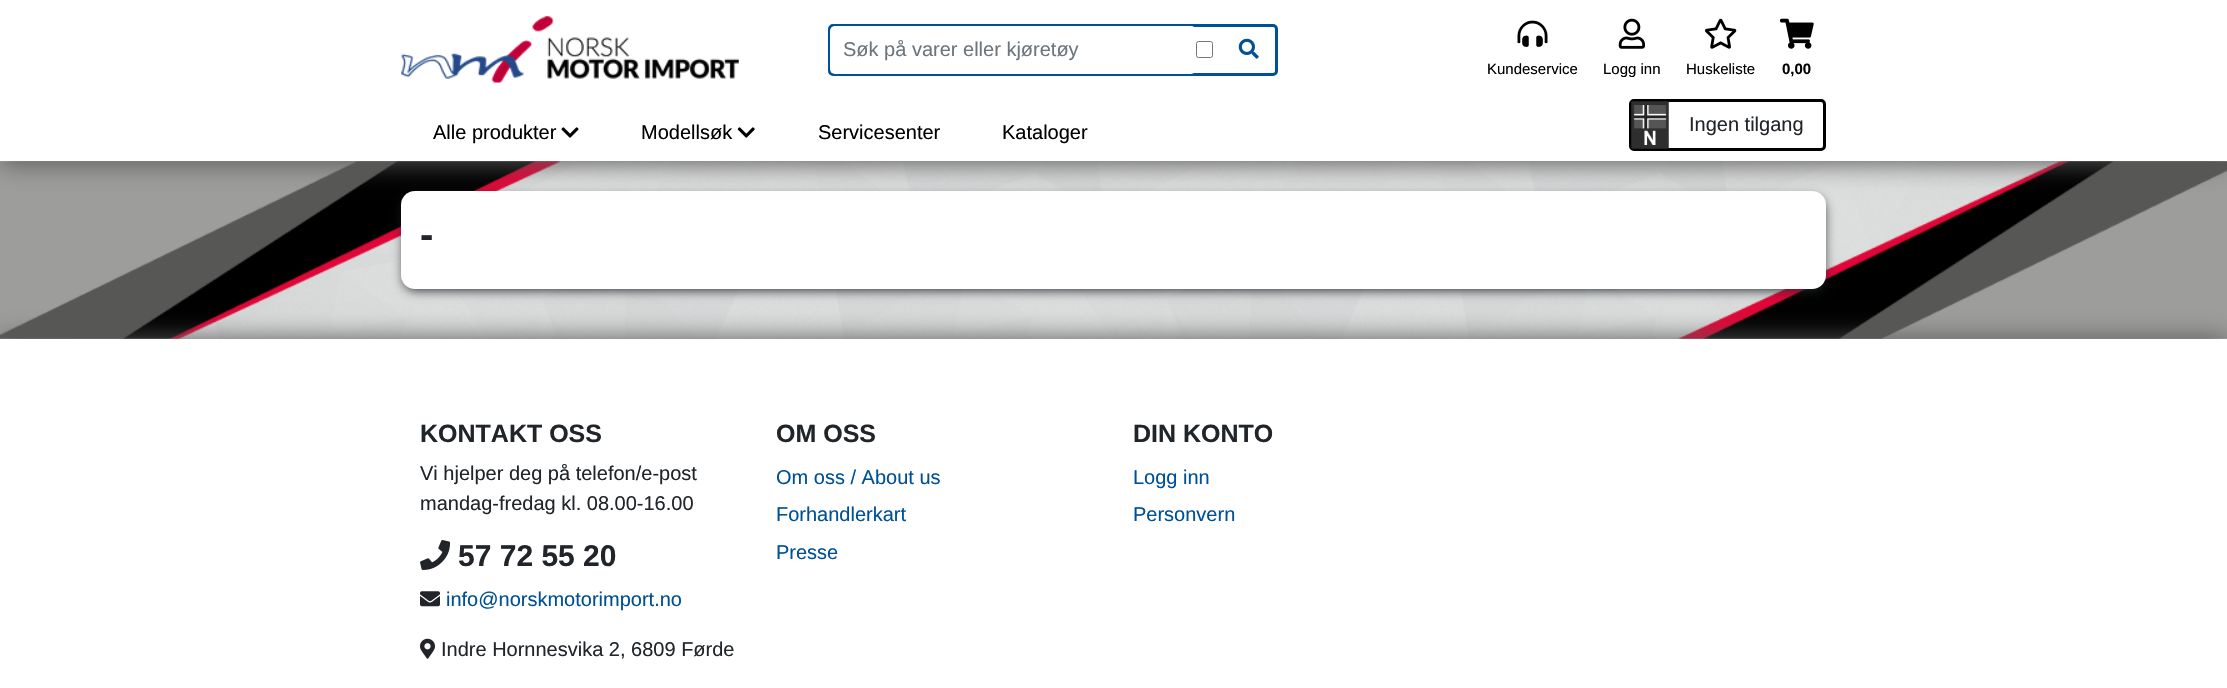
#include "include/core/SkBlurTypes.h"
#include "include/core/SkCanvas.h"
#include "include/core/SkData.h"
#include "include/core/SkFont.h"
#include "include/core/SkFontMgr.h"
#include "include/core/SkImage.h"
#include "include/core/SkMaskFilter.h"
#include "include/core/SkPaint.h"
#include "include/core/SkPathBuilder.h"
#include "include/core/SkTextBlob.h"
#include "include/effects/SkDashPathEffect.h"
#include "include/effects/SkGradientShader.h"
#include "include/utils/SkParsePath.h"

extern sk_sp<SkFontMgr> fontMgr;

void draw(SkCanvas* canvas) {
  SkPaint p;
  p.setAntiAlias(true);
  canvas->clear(SK_ColorWHITE);
  canvas->drawImageRect(SkImages::DeferredFromEncodedData(SkData::MakeFromFileName("images/1.png")), SkRect::MakeLTRB(0, 161, 2227, 339), SkSamplingOptions());
  canvas->drawImageRect(SkImages::DeferredFromEncodedData(SkData::MakeFromFileName("images/11.png")), SkRect::MakeLTRB(0, 161, 2227, 339), SkSamplingOptions());
  p.setColor(SkColorSetRGB(33, 37, 41));
  p.setMaskFilter(SkMaskFilter::MakeBlur(kNormal_SkBlurStyle, 6));
  canvas->drawRoundRect(SkRect::MakeLTRB(404, 198, 1824, 290), 11, 11, p);
  p.setMaskFilter(nullptr);
  p.setColor(SK_ColorWHITE);
  canvas->drawRoundRect(SkRect::MakeLTRB(401, 191, 1826, 289), 14, 14, p);
  p.setColor(SkColorSetRGB(87, 87, 86));
  p.setMaskFilter(SkMaskFilter::MakeBlur(kNormal_SkBlurStyle, 12.5f));
  canvas->drawRect(SkRect::MakeLTRB(0, 1, 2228, 163), p);
  p.setMaskFilter(nullptr);
  p.setColor(SK_ColorWHITE);
  canvas->drawRect(SkRect::MakeLTRB(0, 0, 2227, 161), p);
  canvas->drawImageRect(SkImages::DeferredFromEncodedData(SkData::MakeFromFileName("images/2.png")), SkRect::MakeLTRB(401, 16, 739, 83), SkSamplingOptions());
  p.setStyle(SkPaint::kStroke_Style);
  p.setStrokeWidth(3);
  p.setColor(SkColorSetRGB(0, 80, 149));
  canvas->drawRoundRect(SkRect::MakeLTRB(829.5f, 25.5f, 1276.5f, 74.5f), 3.5f, 3.5f, p);
  p.setStyle(SkPaint::kFill_Style);
  p.setColor(SK_ColorWHITE);
  canvas->drawRoundRect(SkRect::MakeLTRB(830, 26, 1196, 74), 5, 5, p);
  p.setStyle(SkPaint::kStroke_Style);
  p.setStrokeWidth(1);
  p.setColor(SkColorSetRGB(118, 118, 118));
  canvas->drawRoundRect(SkRect::MakeLTRB(1196.5f, 41.5f, 1212.5f, 57.5f), 2, 2, p);
  canvas->drawImageRect(SkImages::DeferredFromEncodedData(SkData::MakeFromFileName("images/3.png")), SkRect::MakeLTRB(1238, 38, 1259, 59), SkSamplingOptions());
  canvas->drawImageRect(SkImages::DeferredFromEncodedData(SkData::MakeFromFileName("images/4.png")), SkRect::MakeLTRB(1517, 20, 1548, 47), SkSamplingOptions());
  canvas->drawImageRect(SkImages::DeferredFromEncodedData(SkData::MakeFromFileName("images/5.png")), SkRect::MakeLTRB(1618, 18, 1645, 49), SkSamplingOptions());
  canvas->drawImageRect(SkImages::DeferredFromEncodedData(SkData::MakeFromFileName("images/6.png")), SkRect::MakeLTRB(1705, 18, 1737, 49), SkSamplingOptions());
  canvas->drawImageRect(SkImages::DeferredFromEncodedData(SkData::MakeFromFileName("images/7.png")), SkRect::MakeLTRB(1780, 18, 1814, 49), SkSamplingOptions());
  canvas->drawImageRect(SkImages::DeferredFromEncodedData(SkData::MakeFromFileName("images/8.png")), SkRect::MakeLTRB(561, 127, 579, 138), SkSamplingOptions());
  canvas->drawImageRect(SkImages::DeferredFromEncodedData(SkData::MakeFromFileName("images/9.png")), SkRect::MakeLTRB(737, 127, 755, 138), SkSamplingOptions());
  p.setStrokeWidth(3);
  p.setColor(SK_ColorBLACK);
  canvas->drawRoundRect(SkRect::MakeLTRB(1630.5f, 100.5f, 1824.5f, 149.5f), 3.5f, 3.5f, p);
  canvas->drawImageRect(SkImages::DeferredFromEncodedData(SkData::MakeFromFileName("images/10.png")), SkRect::MakeLTRB(1631, 101, 1669, 149), SkSamplingOptions());
  p.setStyle(SkPaint::kFill_Style);
  p.setColor(SkColorSetRGB(87, 87, 86));
  p.setMaskFilter(SkMaskFilter::MakeBlur(kNormal_SkBlurStyle, 12.5f));
  canvas->drawRect(SkRect::MakeLTRB(0, 339, 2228, 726), p);
  p.setMaskFilter(nullptr);
  p.setColor(SK_ColorWHITE);
  canvas->drawRect(SkRect::MakeLTRB(0, 339, 2227, 688), p);
  canvas->drawImageRect(SkImages::DeferredFromEncodedData(SkData::MakeFromFileName("images/12.png")), SkRect::MakeLTRB(420, 540, 451, 570), SkSamplingOptions());
  canvas->drawImageRect(SkImages::DeferredFromEncodedData(SkData::MakeFromFileName("images/13.png")), SkRect::MakeLTRB(420, 591, 440, 607), SkSamplingOptions());
  canvas->drawImageRect(SkImages::DeferredFromEncodedData(SkData::MakeFromFileName("images/14.png")), SkRect::MakeLTRB(420, 638, 435, 659), SkSamplingOptions());
  SkFont font1(fontMgr->matchFamilyStyle("Liberation Sans", SkFontStyle::Normal()), 20);
  font1.setSubpixel(true);
  p.setColor(SkColorSetRGB(108, 117, 125));
  canvas->drawString("Søk på varer eller kjøretøy", 843, 56, font1, p);
  SkFont font2(fontMgr->matchFamilyStyle("Liberation Sans", SkFontStyle::Normal()), 15);
  font2.setSubpixel(true);
  p.setColor(SK_ColorBLACK);
  canvas->drawString("Kundeservice", 1487, 74, font2, p);
  canvas->drawString("Logg inn", 1603, 74, font2, p);
  canvas->drawString("Huskeliste", 1686, 74, font2, p);
  SkFont font3(fontMgr->matchFamilyStyle("Liberation Sans", SkFontStyle::Bold()), 15);
  font3.setSubpixel(true);
  canvas->drawString("0,00", 1782, 74, font3, p);
  canvas->drawString("Alle produkter", 433, 139, font1, p);
  canvas->drawString("Modellsøk", 641, 139, font1, p);
  canvas->drawString("Servicesenter", 818, 139, font1, p);
  canvas->drawString("Kataloger", 1002, 139, font1, p);
  p.setColor(SkColorSetRGB(33, 37, 41));
  canvas->drawString("Ingen tilgang", 1689, 131, font1, p);
  SkFont font4(fontMgr->matchFamilyStyle("Liberation Sans", SkFontStyle::Bold()), 40);
  font4.setSubpixel(true);
  canvas->drawString("-", 420, 248, font4, p);
  SkFont font5(fontMgr->matchFamilyStyle("Liberation Sans", SkFontStyle::Bold()), 25);
  font5.setSubpixel(true);
  canvas->drawString("KONTAKT OSS", 420, 442, font5, p);
  canvas->drawString("Vi hjelper deg på telefon/e-post", 420, 480, font1, p);
  canvas->drawString("mandag-fredag kl. 08.00-16.00", 420, 510, font1, p);
  SkFont font6(fontMgr->matchFamilyStyle("Liberation Sans", SkFontStyle::Bold()), 30);
  font6.setSubpixel(true);
  canvas->drawString("57 72 55 20", 458, 566, font6, p);
  p.setColor(SkColorSetRGB(0, 80, 149));
  canvas->drawString("info@norskmotorimport.no", 446, 606, font1, p);
  p.setColor(SkColorSetRGB(33, 37, 41));
  canvas->drawString("Indre Hornnesvika 2, 6809 Førde", 441, 656, font1, p);
  canvas->drawString("OM OSS", 776, 442, font5, p);
  p.setColor(SkColorSetRGB(0, 80, 149));
  canvas->drawString("Om oss / About us", 776, 484, font1, p);
  canvas->drawString("Forhandlerkart", 776, 521, font1, p);
  canvas->drawString("Presse", 776, 559, font1, p);
  p.setColor(SkColorSetRGB(33, 37, 41));
  canvas->drawString("DIN KONTO", 1133, 442, font5, p);
  p.setColor(SkColorSetRGB(0, 80, 149));
  canvas->drawString("Logg inn", 1133, 484, font1, p);
  canvas->drawString("Personvern", 1133, 521, font1, p);
}
